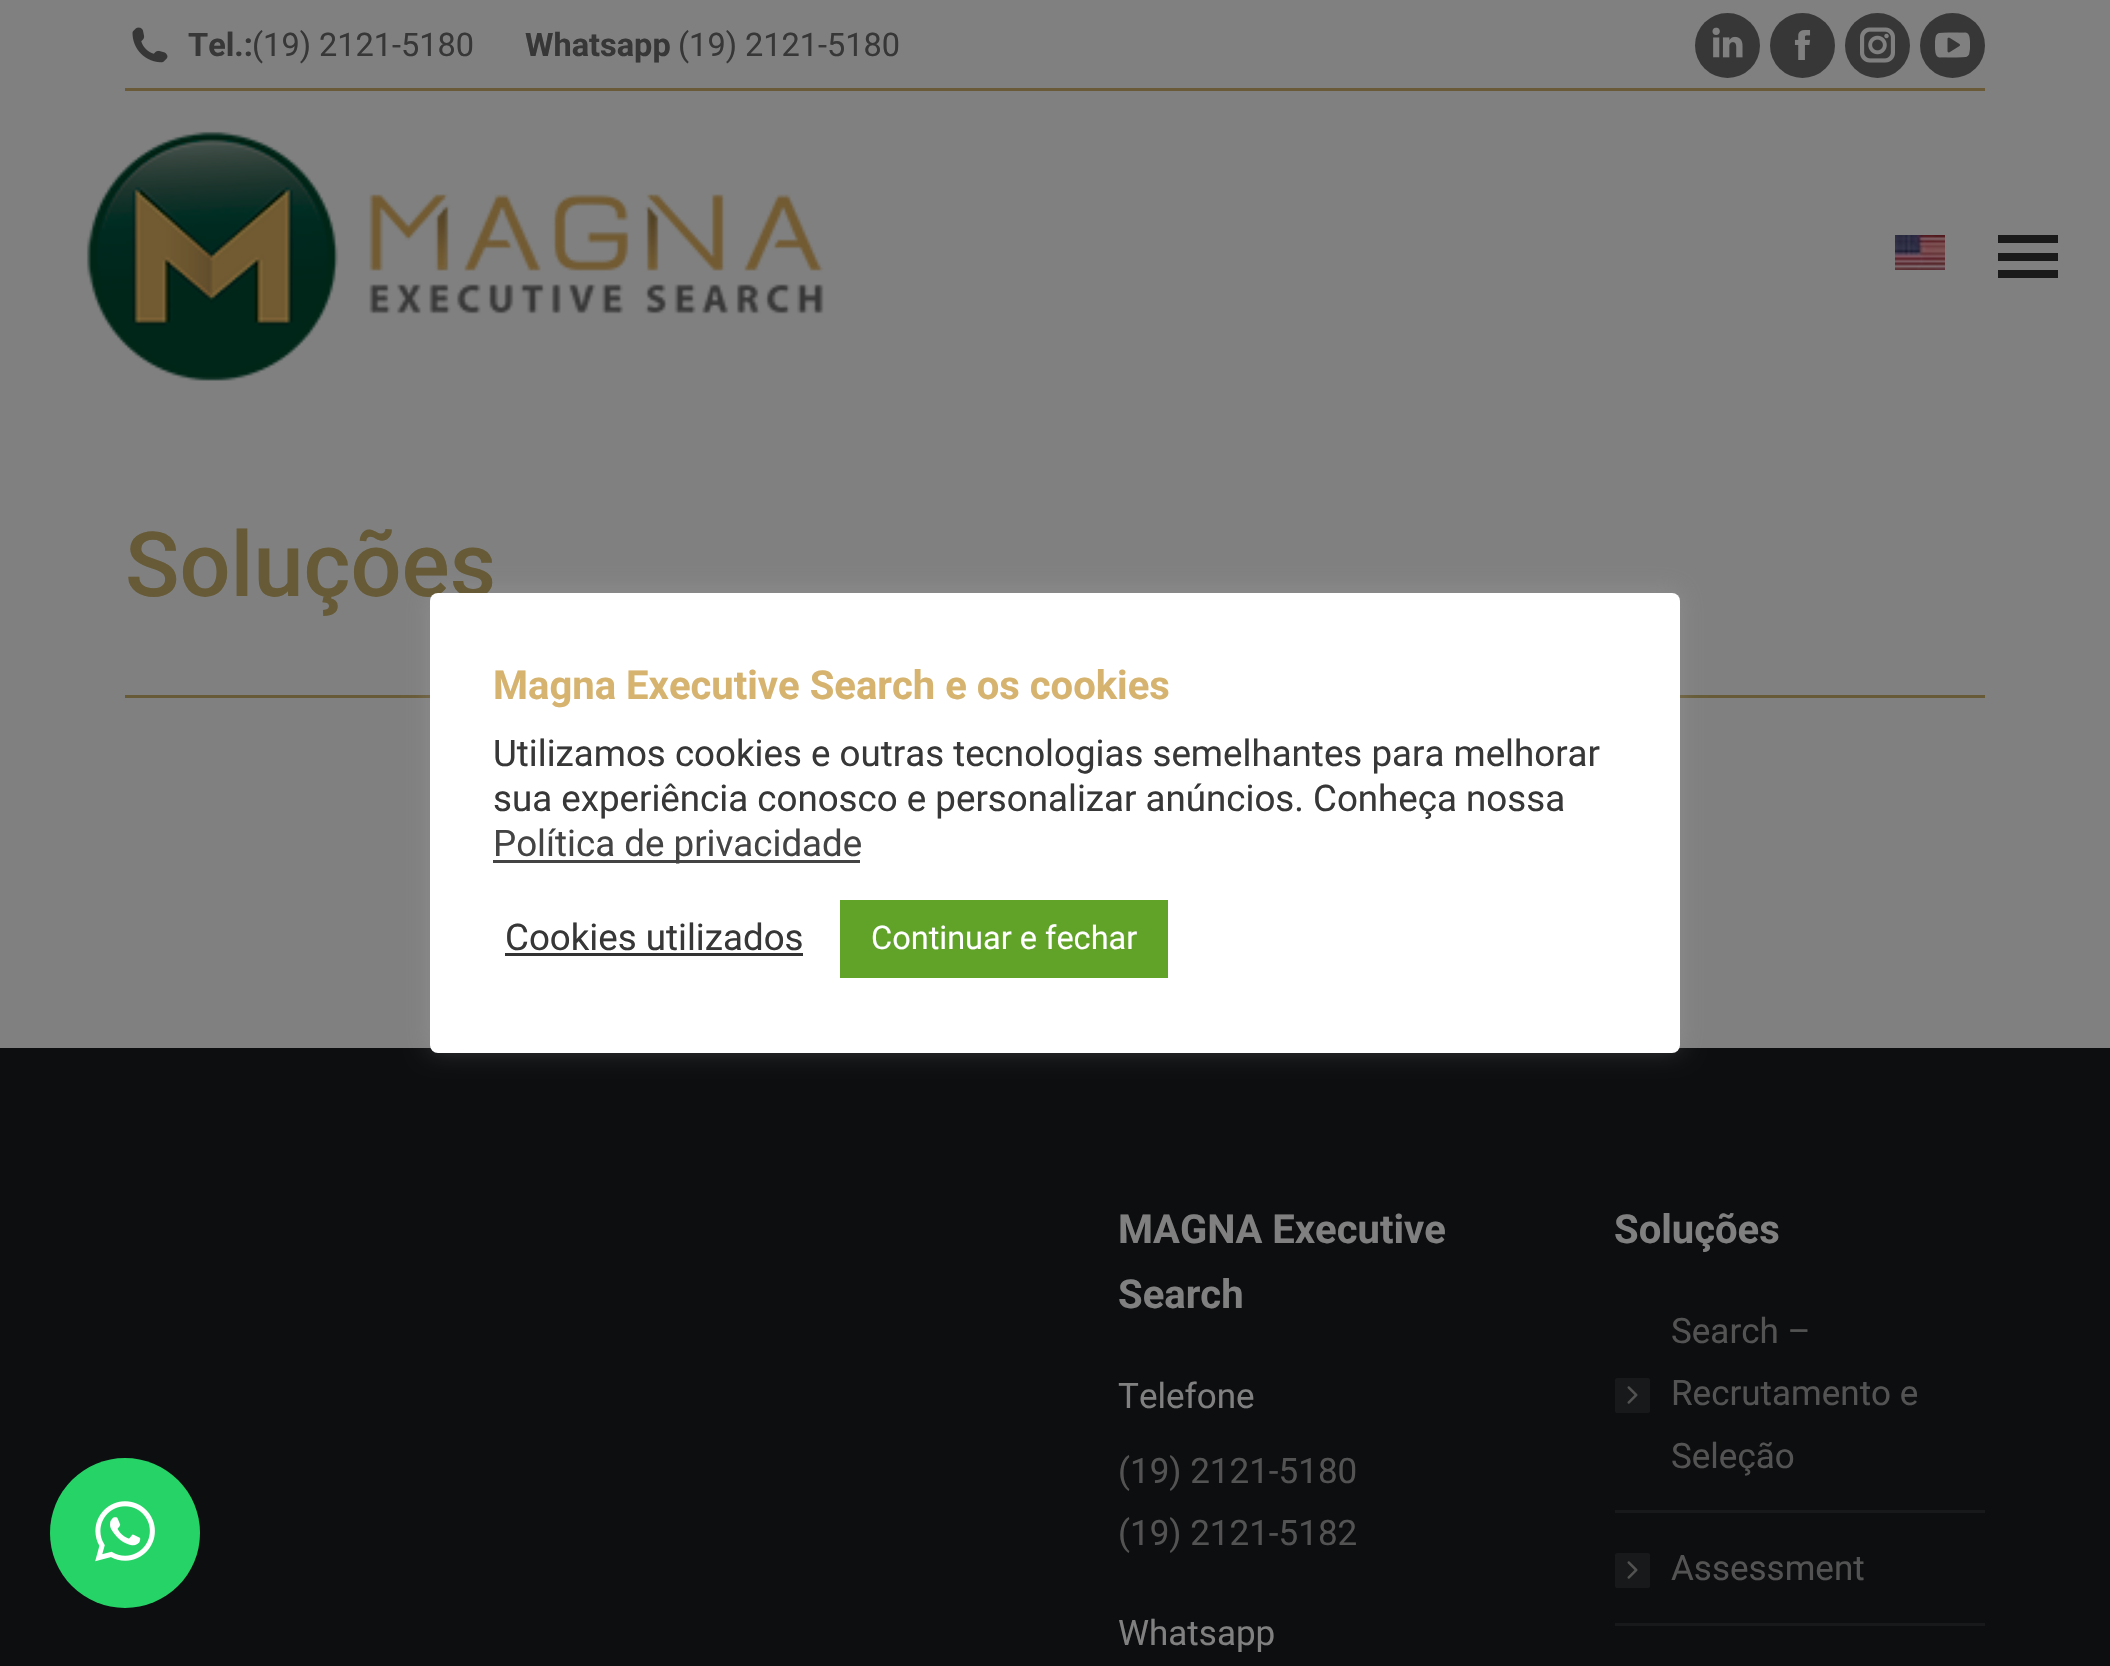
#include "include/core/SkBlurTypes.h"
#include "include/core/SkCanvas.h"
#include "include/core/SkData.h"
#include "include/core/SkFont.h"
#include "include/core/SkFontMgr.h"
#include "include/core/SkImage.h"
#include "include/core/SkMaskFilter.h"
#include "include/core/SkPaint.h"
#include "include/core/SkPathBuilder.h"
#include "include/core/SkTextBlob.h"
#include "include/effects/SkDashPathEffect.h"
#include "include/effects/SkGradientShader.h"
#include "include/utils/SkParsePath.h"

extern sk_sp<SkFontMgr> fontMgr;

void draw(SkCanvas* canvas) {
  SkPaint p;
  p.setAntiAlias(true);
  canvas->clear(SkColorSetRGB(128, 128, 128));
  canvas->drawImageRect(SkImages::DeferredFromEncodedData(SkData::MakeFromFileName("images/1.png")), SkRect::MakeLTRB(132, 27, 168, 63), SkSamplingOptions());
  p.setColor(SkColorSetRGB(55, 55, 55));
  canvas->drawCircle(1727.5f, 45.5f, 32.5f, p);
  canvas->drawImageRect(SkImages::DeferredFromEncodedData(SkData::MakeFromFileName("images/2.png")), SkRect::MakeLTRB(1712, 27, 1743, 58), SkSamplingOptions());
  canvas->drawCircle(1802.5f, 45.5f, 32.5f, p);
  canvas->drawImageRect(SkImages::DeferredFromEncodedData(SkData::MakeFromFileName("images/3.png")), SkRect::MakeLTRB(1794, 30, 1811, 60), SkSamplingOptions());
  canvas->drawCircle(1877.5f, 45.5f, 32.5f, p);
  canvas->drawImageRect(SkImages::DeferredFromEncodedData(SkData::MakeFromFileName("images/4.png")), SkRect::MakeLTRB(1860, 27, 1895, 63), SkSamplingOptions());
  canvas->drawCircle(1952.5f, 45.5f, 32.5f, p);
  canvas->drawImageRect(SkImages::DeferredFromEncodedData(SkData::MakeFromFileName("images/5.png")), SkRect::MakeLTRB(1935, 32, 1970, 58), SkSamplingOptions());
  p.setColor(SkColorSetRGB(107, 90, 55));
  canvas->drawRect(SkRect::MakeLTRB(125, 88, 1985, 91), p);
  canvas->drawImageRect(SkImages::DeferredFromEncodedData(SkData::MakeFromFileName("images/6.png")), SkRect::MakeLTRB(86, 131, 824, 381), SkSamplingOptions());
  canvas->drawImageRect(SkImages::DeferredFromEncodedData(SkData::MakeFromFileName("images/7.png")), SkRect::MakeLTRB(1895, 235, 1945, 270), SkSamplingOptions());
  p.setColor(SkColorSetRGB(26, 26, 26));
  canvas->drawRect(SkRect::MakeLTRB(1998, 235, 2058, 243), p);
  canvas->drawRect(SkRect::MakeLTRB(1998, 253, 2058, 261), p);
  canvas->drawRect(SkRect::MakeLTRB(1998, 270, 2058, 278), p);
  p.setColor(SkColorSetRGB(102, 90, 55));
  canvas->drawRect(SkRect::MakeLTRB(125, 695, 1985, 698), p);
  p.setColor(SkColorSetRGB(13, 14, 16));
  canvas->drawRect(SkRect::MakeLTRB(0, 1048, 2110, 1666), p);
  p.setColor(SkColorSetRGB(24, 25, 26));
  canvas->drawRoundRect(SkRect::MakeLTRB(1615, 1378, 1650, 1413), 2.5f, 2.5f, p);
  canvas->drawImageRect(SkImages::DeferredFromEncodedData(SkData::MakeFromFileName("images/8.png")), SkRect::MakeLTRB(1627, 1386, 1638, 1404), SkSamplingOptions());
  canvas->drawRect(SkRect::MakeLTRB(1615, 1510, 1985, 1513), p);
  canvas->drawRoundRect(SkRect::MakeLTRB(1615, 1553, 1650, 1588), 2.5f, 2.5f, p);
  canvas->drawImageRect(SkImages::DeferredFromEncodedData(SkData::MakeFromFileName("images/8.png")), SkRect::MakeLTRB(1627, 1561, 1638, 1579), SkSamplingOptions());
  canvas->drawRect(SkRect::MakeLTRB(1615, 1623, 1985, 1626), p);
  p.setColor(SkColorSetARGB(77, 172, 171, 171));
  p.setMaskFilter(SkMaskFilter::MakeBlur(kNormal_SkBlurStyle, 12.5f));
  canvas->drawRoundRect(SkRect::MakeLTRB(430, 590, 1680, 1050), 8, 8, p);
  p.setMaskFilter(nullptr);
  p.setColor(SkColorSetRGB(37, 211, 102));
  canvas->drawCircle(125, 1533, 75, p);
  canvas->drawImageRect(SkImages::DeferredFromEncodedData(SkData::MakeFromFileName("images/9.png")), SkRect::MakeLTRB(95, 1501, 155, 1562), SkSamplingOptions());
  SkFont font1(fontMgr->matchFamilyStyle("Roboto", SkFontStyle::Bold()), 32.5f);
  font1.setSubpixel(true);
  p.setColor(SkColorSetRGB(55, 55, 55));
  canvas->drawString("Tel.:", 188, 56, font1, p);
  SkFont font2(fontMgr->matchFamilyStyle("Roboto", SkFontStyle::Normal()), 32.5f);
  font2.setSubpixel(true);
  canvas->drawString("(19) 2121-5180", 252, 56, font2, p);
  canvas->drawString("Whatsapp", 525, 56, font1, p);
  canvas->drawString("(19) 2121-5180", 678, 56, font2, p);
  SkFont font3(fontMgr->matchFamilyStyle("Roboto", SkFontStyle(500, SkFontStyle::kNormal_Width, SkFontStyle::kUpright_Slant)), 90);
  font3.setSubpixel(true);
  p.setColor(SkColorSetRGB(102, 90, 55));
  canvas->drawString("Soluções", 125, 596, font3, p);
  SkFont font4(fontMgr->matchFamilyStyle("Roboto", SkFontStyle::Bold()), 40);
  font4.setSubpixel(true);
  p.setColor(SkColorSetRGB(128, 128, 128));
  canvas->drawString("MAGNA Executive", 1118, 1243, font4, p);
  canvas->drawString("Search", 1118, 1308, font4, p);
  SkFont font5(fontMgr->matchFamilyStyle("Roboto", SkFontStyle::Normal()), 35);
  font5.setSubpixel(true);
  canvas->drawString("Telefone", 1118, 1408, font5, p);
  p.setColor(SkColorSetRGB(83, 83, 83));
  canvas->drawString("(19) 2121-5180", 1118, 1483, font5, p);
  canvas->drawString("(19) 2121-5182", 1118, 1545, font5, p);
  p.setColor(SkColorSetRGB(128, 128, 128));
  canvas->drawString("Whatsapp", 1118, 1645, font5, p);
  canvas->drawString("Soluções", 1614, 1243, font4, p);
  p.setColor(SkColorSetRGB(83, 83, 83));
  canvas->drawString("Search –", 1671, 1343, font5, p);
  canvas->drawString("Recrutamento e", 1671, 1405, font5, p);
  canvas->drawString("Seleção", 1671, 1468, font5, p);
  canvas->drawString("Assessment", 1671, 1580, font5, p);
  p.setColor(SK_ColorWHITE);
  canvas->drawRoundRect(SkRect::MakeLTRB(430, 593, 1680, 1053), 8, 8, p);
  p.setColor(SkColorSetRGB(214, 179, 110));
  canvas->drawString("Magna Executive Search e os cookies", 493, 699, font4, p);
  SkFont font6(fontMgr->matchFamilyStyle("Roboto", SkFontStyle::Normal()), 36.7f);
  font6.setSubpixel(true);
  p.setColor(SkColorSetRGB(55, 55, 55));
  canvas->drawString("Utilizamos cookies e outras tecnologias semelhantes para melhorar", 493, 766, font6, p);
  canvas->drawString("sua experiência conosco e personalizar anúncios. Conheça nossa", 493, 811, font6, p);
  p.setColor(SkColorSetRGB(68, 68, 68));
  canvas->drawRect(SkRect::MakeLTRB(493, 860, 860, 863), p);
  canvas->drawString("Política de privacidade", 493, 856, font6, p);
  p.setColor(SkColorSetRGB(55, 55, 55));
  canvas->drawString("Cookies utilizados", 505, 950, font6, p);
  p.setColor(SkColorSetRGB(51, 51, 51));
  canvas->drawRect(SkRect::MakeLTRB(505, 953, 803, 956), p);
  p.setColor(SkColorSetRGB(97, 162, 41));
  canvas->drawRect(SkRect::MakeLTRB(840, 900, 1168, 978), p);
  p.setColor(SK_ColorWHITE);
  canvas->drawString("Continuar e fechar", 871, 949, font2, p);
}
